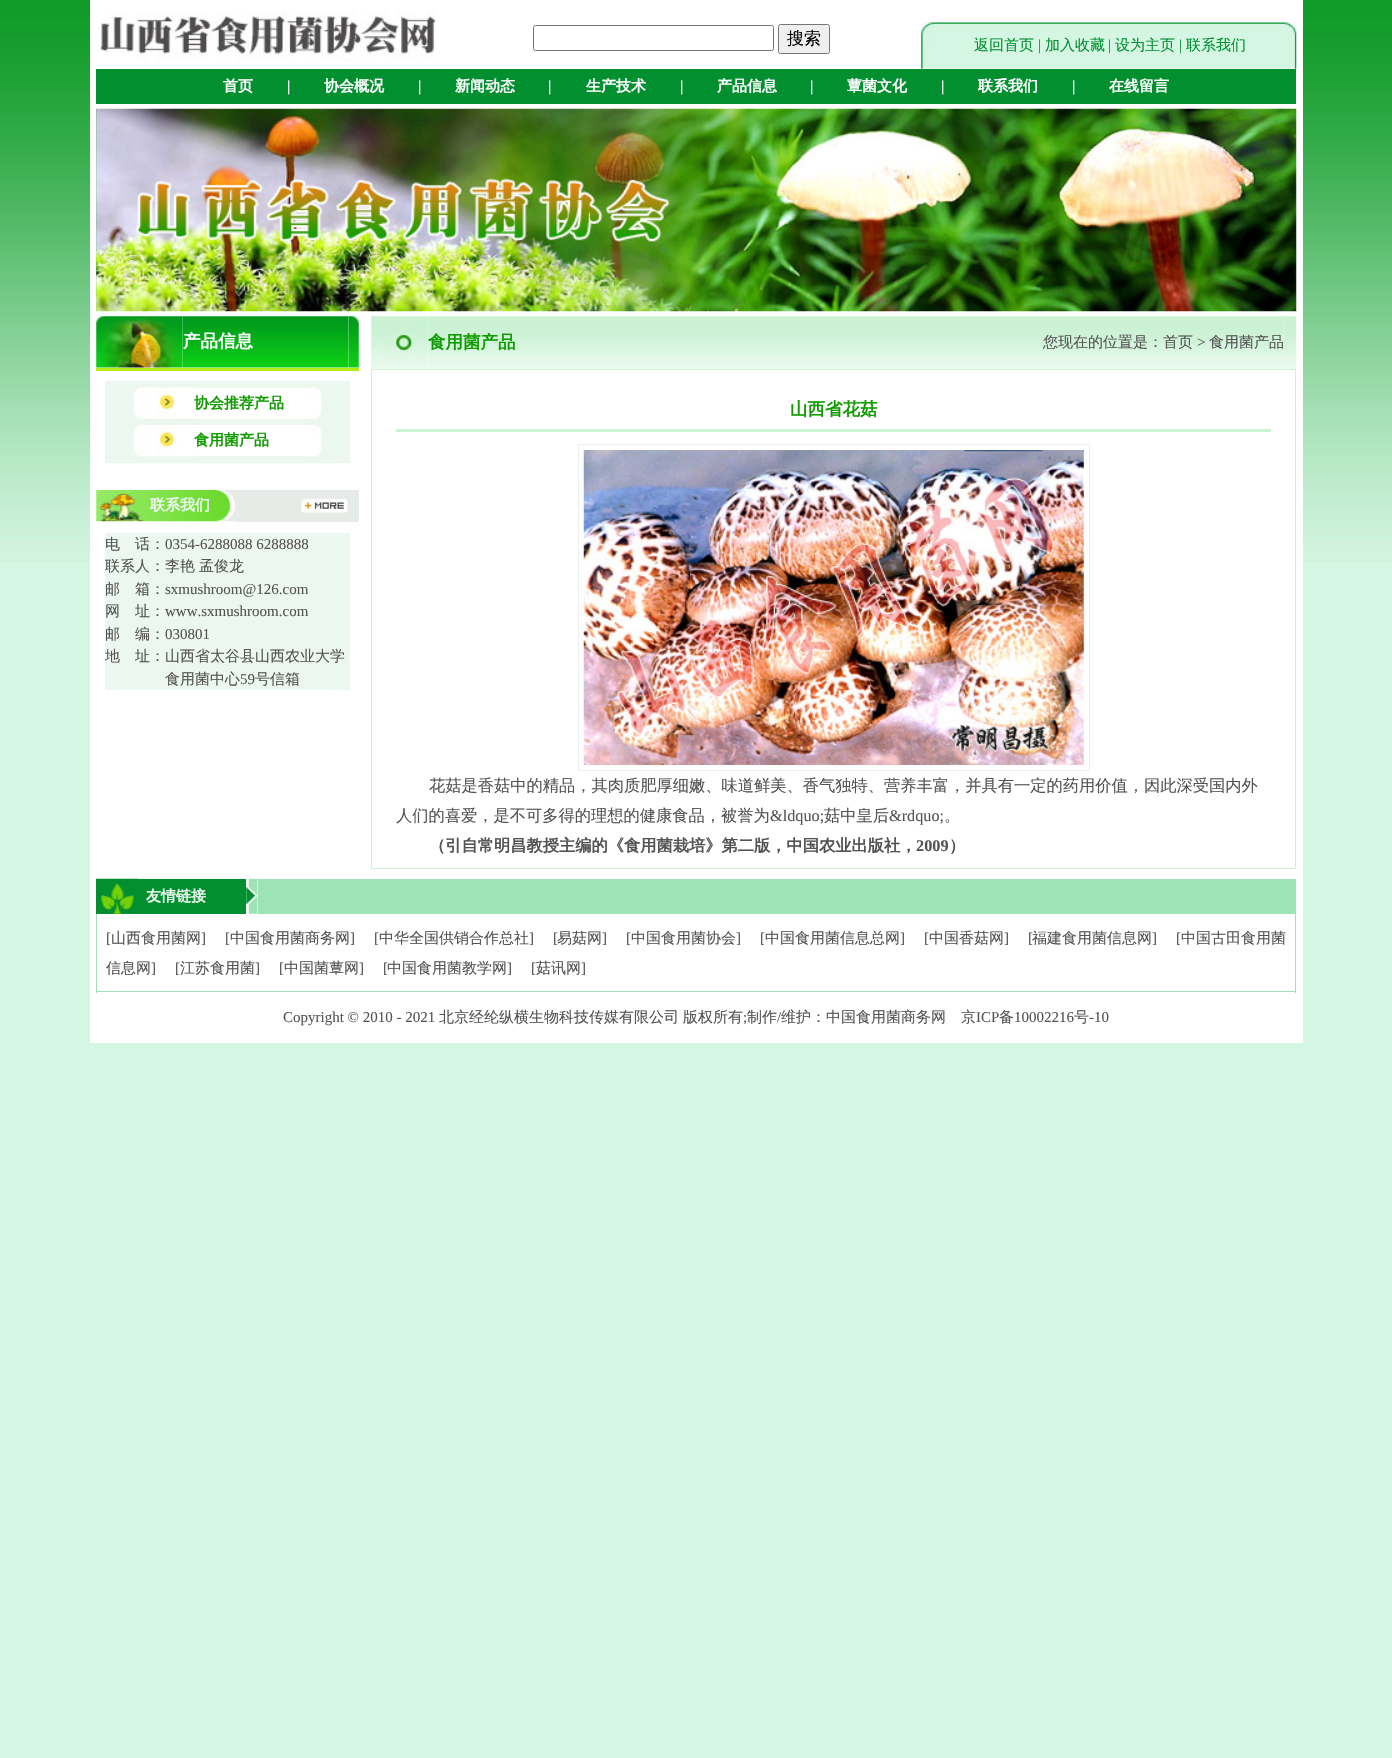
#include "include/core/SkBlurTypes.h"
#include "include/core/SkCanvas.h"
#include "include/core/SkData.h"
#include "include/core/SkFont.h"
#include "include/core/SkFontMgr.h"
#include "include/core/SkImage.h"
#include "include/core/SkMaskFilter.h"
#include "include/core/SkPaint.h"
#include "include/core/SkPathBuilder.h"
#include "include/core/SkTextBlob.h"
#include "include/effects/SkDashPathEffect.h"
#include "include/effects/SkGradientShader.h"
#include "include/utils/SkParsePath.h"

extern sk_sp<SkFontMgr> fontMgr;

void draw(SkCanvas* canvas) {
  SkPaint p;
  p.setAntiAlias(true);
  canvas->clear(SkColorSetRGB(213, 246, 227));
  canvas->drawImageRect(SkImages::DeferredFromEncodedData(SkData::MakeFromFileName("images/1.png")), SkRect::MakeLTRB(0, 0, 1392, 562), SkSamplingOptions());
  p.setColor(SK_ColorWHITE);
  canvas->drawRect(SkRect::MakeLTRB(1296, 0, 1303, 104), p);
  canvas->drawRect(SkRect::MakeLTRB(90, 0, 1296, 69), p);
  canvas->drawImageRect(SkImages::DeferredFromEncodedData(SkData::MakeFromFileName("images/2.png")), SkRect::MakeLTRB(97, 11, 436, 61), SkSamplingOptions());
  p.setStyle(SkPaint::kStroke_Style);
  p.setStrokeWidth(1);
  p.setColor(SkColorSetRGB(118, 118, 118));
  canvas->drawRoundRect(SkRect::MakeLTRB(533.5f, 25.5f, 773.5f, 50.5f), 2, 2, p);
  p.setStyle(SkPaint::kFill_Style);
  p.setColor(SkColorSetRGB(239, 239, 239));
  canvas->drawRoundRect(SkRect::MakeLTRB(778.5f, 24.5f, 829.5f, 53.5f), 2, 2, p);
  p.setStyle(SkPaint::kStroke_Style);
  p.setColor(SkColorSetRGB(118, 118, 118));
  canvas->drawRoundRect(SkRect::MakeLTRB(778.5f, 24.5f, 829.5f, 53.5f), 2, 2, p);
  canvas->drawImageRect(SkImages::DeferredFromEncodedData(SkData::MakeFromFileName("images/3.png")), SkRect::MakeLTRB(921, 22, 940, 69), SkSamplingOptions());
  canvas->drawImageRect(SkImages::DeferredFromEncodedData(SkData::MakeFromFileName("images/4.png")), SkRect::MakeLTRB(940, 22, 1280, 69), SkSamplingOptions());
  canvas->drawImageRect(SkImages::DeferredFromEncodedData(SkData::MakeFromFileName("images/5.png")), SkRect::MakeLTRB(1280, 22, 1297, 69), SkSamplingOptions());
  p.setStyle(SkPaint::kFill_Style);
  p.setColor(SK_ColorWHITE);
  canvas->drawRect(SkRect::MakeLTRB(90, 69, 96, 104), p);
  p.setColor(SkColorSetRGB(2, 143, 47));
  canvas->drawRect(SkRect::MakeLTRB(96, 69, 1296, 104), p);
  p.setColor(SK_ColorWHITE);
  canvas->drawRect(SkRect::MakeLTRB(90, 104, 1303, 109), p);
  canvas->drawRect(SkRect::MakeLTRB(1296, 104, 1303, 1043), p);
  canvas->drawRect(SkRect::MakeLTRB(90, 311, 1303, 316), p);
  canvas->drawRect(SkRect::MakeLTRB(90, 104, 96, 1043), p);
  canvas->drawImageRect(SkImages::DeferredFromEncodedData(SkData::MakeFromFileName("images/6.png")), SkRect::MakeLTRB(96, 108, 1297, 312), SkSamplingOptions());
  canvas->drawRect(SkRect::MakeLTRB(96, 316, 1296, 879), p);
  canvas->drawImageRect(SkImages::DeferredFromEncodedData(SkData::MakeFromFileName("images/8.png")), SkRect::MakeLTRB(182, 316, 349, 368), SkSamplingOptions());
  canvas->drawImageRect(SkImages::DeferredFromEncodedData(SkData::MakeFromFileName("images/7.png")), SkRect::MakeLTRB(96, 316, 183, 368), SkSamplingOptions());
  canvas->drawImageRect(SkImages::DeferredFromEncodedData(SkData::MakeFromFileName("images/9.png")), SkRect::MakeLTRB(348, 316, 359, 368), SkSamplingOptions());
  canvas->drawImageRect(SkImages::DeferredFromEncodedData(SkData::MakeFromFileName("images/10.png")), SkRect::MakeLTRB(348, 316, 359, 368), SkSamplingOptions());
  p.setColor(SkColorSetRGB(185, 235, 16));
  canvas->drawRect(SkRect::MakeLTRB(96, 368, 359, 371), p);
  p.setColor(SkColorSetRGB(236, 247, 239));
  canvas->drawRect(SkRect::MakeLTRB(105, 381, 350, 463), p);
  canvas->drawImageRect(SkImages::DeferredFromEncodedData(SkData::MakeFromFileName("images/11.png")), SkRect::MakeLTRB(133, 387, 147, 419), SkSamplingOptions());
  canvas->drawImageRect(SkImages::DeferredFromEncodedData(SkData::MakeFromFileName("images/12.png")), SkRect::MakeLTRB(146, 387, 194, 419), SkSamplingOptions());
  p.setColor(SK_ColorWHITE);
  canvas->drawRect(SkRect::MakeLTRB(194, 388, 309, 419), p);
  canvas->drawImageRect(SkImages::DeferredFromEncodedData(SkData::MakeFromFileName("images/13.png")), SkRect::MakeLTRB(309, 387, 322, 419), SkSamplingOptions());
  canvas->drawImageRect(SkImages::DeferredFromEncodedData(SkData::MakeFromFileName("images/14.png")), SkRect::MakeLTRB(133, 425, 147, 457), SkSamplingOptions());
  canvas->drawImageRect(SkImages::DeferredFromEncodedData(SkData::MakeFromFileName("images/15.png")), SkRect::MakeLTRB(146, 425, 194, 457), SkSamplingOptions());
  canvas->drawRect(SkRect::MakeLTRB(194, 425, 309, 456), p);
  canvas->drawImageRect(SkImages::DeferredFromEncodedData(SkData::MakeFromFileName("images/16.png")), SkRect::MakeLTRB(309, 425, 322, 457), SkSamplingOptions());
  canvas->drawImageRect(SkImages::DeferredFromEncodedData(SkData::MakeFromFileName("images/17.png")), SkRect::MakeLTRB(96, 490, 145, 522), SkSamplingOptions());
  canvas->drawImageRect(SkImages::DeferredFromEncodedData(SkData::MakeFromFileName("images/18.png")), SkRect::MakeLTRB(145, 490, 215, 522), SkSamplingOptions());
  canvas->drawImageRect(SkImages::DeferredFromEncodedData(SkData::MakeFromFileName("images/19.png")), SkRect::MakeLTRB(215, 490, 235, 522), SkSamplingOptions());
  p.setColor(SkColorSetRGB(230, 235, 231));
  canvas->drawRect(SkRect::MakeLTRB(235, 490, 359, 522), p);
  canvas->drawImageRect(SkImages::DeferredFromEncodedData(SkData::MakeFromFileName("images/20.png")), SkRect::MakeLTRB(301, 498, 348, 513), SkSamplingOptions());
  p.setColor(SkColorSetRGB(236, 247, 239));
  canvas->drawRect(SkRect::MakeLTRB(105, 533, 350, 690), p);
  canvas->drawImageRect(SkImages::DeferredFromEncodedData(SkData::MakeFromFileName("images/22.png")), SkRect::MakeLTRB(427, 316, 590, 369), SkSamplingOptions());
  canvas->drawImageRect(SkImages::DeferredFromEncodedData(SkData::MakeFromFileName("images/21.png")), SkRect::MakeLTRB(371, 316, 428, 369), SkSamplingOptions());
  canvas->drawImageRect(SkImages::DeferredFromEncodedData(SkData::MakeFromFileName("images/23.png")), SkRect::MakeLTRB(590, 316, 1284, 369), SkSamplingOptions());
  canvas->drawImageRect(SkImages::DeferredFromEncodedData(SkData::MakeFromFileName("images/24.png")), SkRect::MakeLTRB(1283, 316, 1297, 369), SkSamplingOptions());
  p.setStyle(SkPaint::kStroke_Style);
  p.setColor(SkColorSetRGB(203, 242, 213));
  canvas->drawRect(SkRect::MakeLTRB(371.5f, 369.5f, 1295.5f, 868.5f), p);
  p.setStyle(SkPaint::kFill_Style);
  canvas->drawRect(SkRect::MakeLTRB(396, 429, 1271, 432), p);
  p.setStyle(SkPaint::kStroke_Style);
  p.setColor(SkColorSetRGB(235, 239, 240));
  canvas->drawRect(SkRect::MakeLTRB(578.5f, 444.5f, 1089.5f, 770.5f), p);
  canvas->drawImageRect(SkImages::DeferredFromEncodedData(SkData::MakeFromFileName("images/25.png")), SkRect::MakeLTRB(583, 450, 1084, 765), SkSamplingOptions());
  p.setStyle(SkPaint::kFill_Style);
  p.setColor(SK_ColorWHITE);
  canvas->drawRect(SkRect::MakeLTRB(246, 879, 258, 914), p);
  p.setColor(SkColorSetRGB(2, 143, 47));
  canvas->drawRect(SkRect::MakeLTRB(96, 879, 246, 914), p);
  canvas->drawImageRect(SkImages::DeferredFromEncodedData(SkData::MakeFromFileName("images/26.png")), SkRect::MakeLTRB(96, 878, 139, 914), SkSamplingOptions());
  canvas->drawImageRect(SkImages::DeferredFromEncodedData(SkData::MakeFromFileName("images/27.png")), SkRect::MakeLTRB(246, 878, 258, 914), SkSamplingOptions());
  p.setColor(SkColorSetRGB(158, 227, 180));
  canvas->drawRect(SkRect::MakeLTRB(258, 879, 1296, 914), p);
  p.setColor(SK_ColorWHITE);
  canvas->drawRect(SkRect::MakeLTRB(97, 914, 1295, 993), p);
  p.setColor(SkColorSetRGB(158, 227, 180));
  canvas->drawRect(SkRect::MakeLTRB(1295, 914, 1296, 993), p);
  canvas->drawRect(SkRect::MakeLTRB(96, 991, 1296, 992), p);
  canvas->drawRect(SkRect::MakeLTRB(96, 914, 97, 993), p);
  p.setColor(SK_ColorWHITE);
  canvas->drawRect(SkRect::MakeLTRB(96, 993, 1296, 1043), p);
  SkFont font1(fontMgr->matchFamilyStyle("WenQuanYi Zen Hei", SkFontStyle(500, SkFontStyle::kNormal_Width, SkFontStyle::kUpright_Slant)), 17);
  font1.setSubpixel(true);
  p.setColor(SK_ColorBLACK);
  canvas->drawString("搜索", 787, 44, font1, p);
  SkFont font2(fontMgr->matchFamilyStyle("WenQuanYi Zen Hei", SkFontStyle(500, SkFontStyle::kNormal_Width, SkFontStyle::kUpright_Slant)), 15);
  font2.setSubpixel(true);
  p.setColor(SkColorSetRGB(0, 144, 49));
  canvas->drawString("返回首页", 974, 50, font2, p);
  SkFont font3(fontMgr->matchFamilyStyle("Liberation Serif", SkFontStyle::Normal()), 15);
  font3.setSubpixel(true);
  canvas->drawString("|", 1038, 50, font3, p);
  canvas->drawString("加入收藏", 1045, 50, font2, p);
  canvas->drawString("|", 1108, 50, font3, p);
  canvas->drawString("设为主页", 1115, 50, font2, p);
  canvas->drawString("|", 1179, 50, font3, p);
  canvas->drawString("联系我们", 1186, 50, font2, p);
  SkFont font4(fontMgr->matchFamilyStyle("WenQuanYi Zen Hei", SkFontStyle::Bold()), 15);
  font4.setSubpixel(true);
  p.setColor(SK_ColorWHITE);
  canvas->drawString("首页", 223, 91, font4, p);
  SkFont font5(fontMgr->matchFamilyStyle("Liberation Serif", SkFontStyle::Bold()), 15);
  font5.setSubpixel(true);
  canvas->drawString("|", 287, 91, font5, p);
  canvas->drawString("协会概况", 324, 91, font4, p);
  canvas->drawString("|", 418, 91, font5, p);
  canvas->drawString("新闻动态", 455, 91, font4, p);
  canvas->drawString("|", 548, 91, font5, p);
  canvas->drawString("生产技术", 586, 91, font4, p);
  canvas->drawString("|", 680, 91, font5, p);
  canvas->drawString("产品信息", 717, 91, font4, p);
  canvas->drawString("|", 810, 91, font5, p);
  canvas->drawString("蕈菌文化", 847, 91, font4, p);
  canvas->drawString("|", 941, 91, font5, p);
  canvas->drawString("联系我们", 978, 91, font4, p);
  canvas->drawString("|", 1072, 91, font5, p);
  canvas->drawString("在线留言", 1109, 91, font4, p);
  SkFont font6(fontMgr->matchFamilyStyle("WenQuanYi Zen Hei", SkFontStyle::Bold()), 17.5f);
  font6.setSubpixel(true);
  canvas->drawString("产品信息", 183, 347, font6, p);
  p.setColor(SkColorSetRGB(16, 156, 0));
  canvas->drawString("协会推荐产品", 194, 408, font4, p);
  canvas->drawString("食用菌产品", 194, 445, font4, p);
  p.setColor(SkColorSetRGB(236, 249, 239));
  canvas->drawString("联系我们", 150, 510, font4, p);
  p.setColor(SkColorSetRGB(83, 83, 83));
  canvas->drawString("电　话：", 105, 549, font2, p);
  canvas->drawString("0354-6288088 6288888", 165, 549, font3, p);
  canvas->drawString("联系人：李艳", 105, 571, font2, p);
  canvas->drawString("孟俊龙", 199, 571, font2, p);
  canvas->drawString("邮　箱：", 105, 594, font2, p);
  canvas->drawString("sxmushroom@126.com", 165, 594, font3, p);
  canvas->drawString("网　址：", 105, 616, font2, p);
  canvas->drawString("www.sxmushroom.com", 165, 616, font3, p);
  canvas->drawString("邮　编：", 105, 639, font2, p);
  canvas->drawString("030801", 165, 639, font3, p);
  canvas->drawString("地　址：山西省太谷县山西农业大学", 105, 661, font2, p);
  canvas->drawString("食用菌中心", 165, 684, font2, p);
  canvas->drawString("59", 240, 684, font3, p);
  canvas->drawString("号信箱", 255, 684, font2, p);
  p.setColor(SkColorSetRGB(16, 156, 0));
  canvas->drawString("食用菌产品", 428, 348, font6, p);
  p.setColor(SkColorSetRGB(83, 83, 83));
  canvas->drawString("您现在的位置是：首页", 1043, 347, font2, p);
  canvas->drawString(">", 1197, 347, font3, p);
  canvas->drawString("食用菌产品", 1209, 347, font2, p);
  p.setColor(SkColorSetRGB(16, 156, 0));
  canvas->drawString("山西省花菇", 790, 415, font6, p);
  SkFont font7(fontMgr->matchFamilyStyle("WenQuanYi Zen Hei", SkFontStyle(500, SkFontStyle::kNormal_Width, SkFontStyle::kUpright_Slant)), 16.25f);
  font7.setSubpixel(true);
  p.setColor(SkColorSetRGB(83, 83, 83));
  canvas->drawString("花菇是香菇中的精品，其肉质肥厚细嫩、味道鲜美、香气独特、营养丰富，并具有一定的药用价值，因此深受国内外", 429, 791, font7, p);
  canvas->drawString("人们的喜爱，是不可多得的理想的健康食品，被誉为", 396, 821, font7, p);
  SkFont font8(fontMgr->matchFamilyStyle("Liberation Serif", SkFontStyle::Normal()), 16.25f);
  font8.setSubpixel(true);
  canvas->drawString("&ldquo;", 770, 821, font8, p);
  canvas->drawString("菇中皇后", 824, 821, font7, p);
  canvas->drawString("&rdquo;", 889, 821, font8, p);
  canvas->drawString("。", 944, 821, font7, p);
  SkFont font9(fontMgr->matchFamilyStyle("WenQuanYi Zen Hei", SkFontStyle::Bold()), 16.25f);
  font9.setSubpixel(true);
  canvas->drawString("（引自常明昌教授主编的《食用菌栽培》第二版，中国农业出版社，", 429, 851, font9, p);
  SkFont font10(fontMgr->matchFamilyStyle("Liberation Serif", SkFontStyle::Bold()), 16.25f);
  font10.setSubpixel(true);
  canvas->drawString("2009", 916, 851, font10, p);
  canvas->drawString("）", 949, 851, font9, p);
  p.setColor(SkColorSetRGB(236, 249, 239));
  canvas->drawString("友情链接", 146, 901, font4, p);
  p.setColor(SkColorSetRGB(83, 83, 83));
  canvas->drawString("[", 106, 943, font3, p);
  canvas->drawString("山西食用菌网", 111, 943, font2, p);
  canvas->drawString("]", 201, 943, font3, p);
  canvas->drawString("[", 225, 943, font3, p);
  canvas->drawString("中国食用菌商务网", 230, 943, font2, p);
  canvas->drawString("]", 350, 943, font3, p);
  canvas->drawString("[", 374, 943, font3, p);
  canvas->drawString("中华全国供销合作总社", 379, 943, font2, p);
  canvas->drawString("]", 529, 943, font3, p);
  canvas->drawString("[", 553, 943, font3, p);
  canvas->drawString("易菇网", 557, 943, font2, p);
  canvas->drawString("]", 602, 943, font3, p);
  canvas->drawString("[", 626, 943, font3, p);
  canvas->drawString("中国食用菌协会", 631, 943, font2, p);
  canvas->drawString("]", 736, 943, font3, p);
  canvas->drawString("[", 760, 943, font3, p);
  canvas->drawString("中国食用菌信息总网", 765, 943, font2, p);
  canvas->drawString("]", 900, 943, font3, p);
  canvas->drawString("[", 924, 943, font3, p);
  canvas->drawString("中国香菇网", 929, 943, font2, p);
  canvas->drawString("]", 1004, 943, font3, p);
  canvas->drawString("[", 1028, 943, font3, p);
  canvas->drawString("福建食用菌信息网", 1032, 943, font2, p);
  canvas->drawString("]", 1152, 943, font3, p);
  canvas->drawString("[", 1176, 943, font3, p);
  canvas->drawString("中国古田食用菌", 1181, 943, font2, p);
  canvas->drawString("信息网", 106, 973, font2, p);
  canvas->drawString("]", 151, 973, font3, p);
  canvas->drawString("[", 175, 973, font3, p);
  canvas->drawString("江苏食用菌", 180, 973, font2, p);
  canvas->drawString("]", 255, 973, font3, p);
  canvas->drawString("[", 279, 973, font3, p);
  canvas->drawString("中国菌蕈网", 284, 973, font2, p);
  canvas->drawString("]", 359, 973, font3, p);
  canvas->drawString("[", 383, 973, font3, p);
  canvas->drawString("中国食用菌教学网", 387, 973, font2, p);
  canvas->drawString("]", 507, 973, font3, p);
  canvas->drawString("[", 531, 973, font3, p);
  canvas->drawString("菇讯网", 536, 973, font2, p);
  canvas->drawString("]", 581, 973, font3, p);
  canvas->drawString("Copyright © 2010 - 2021", 283, 1022, font3, p);
  canvas->drawString("北京经纶纵横生物科技传媒有限公司", 439, 1022, font2, p);
  canvas->drawString("版权所有", 683, 1022, font2, p);
  canvas->drawString(";", 743, 1022, font3, p);
  canvas->drawString("制作", 747, 1022, font2, p);
  canvas->drawString("/", 777, 1022, font3, p);
  canvas->drawString("维护：中国食用菌商务网", 781, 1022, font2, p);
  canvas->drawString("京", 961, 1022, font2, p);
  canvas->drawString("ICP", 976, 1022, font3, p);
  canvas->drawString("备", 999, 1022, font2, p);
  canvas->drawString("10002216", 1014, 1022, font3, p);
  canvas->drawString("号", 1074, 1022, font2, p);
  canvas->drawString("-10", 1089, 1022, font3, p);
}
